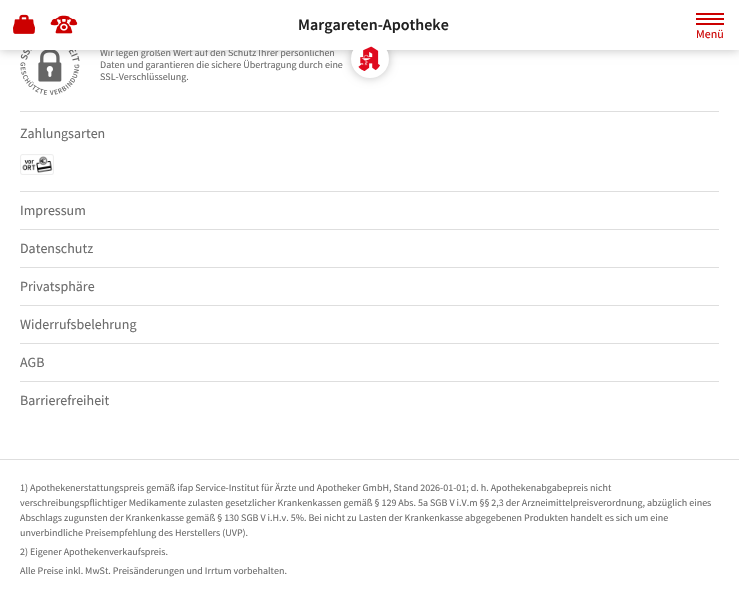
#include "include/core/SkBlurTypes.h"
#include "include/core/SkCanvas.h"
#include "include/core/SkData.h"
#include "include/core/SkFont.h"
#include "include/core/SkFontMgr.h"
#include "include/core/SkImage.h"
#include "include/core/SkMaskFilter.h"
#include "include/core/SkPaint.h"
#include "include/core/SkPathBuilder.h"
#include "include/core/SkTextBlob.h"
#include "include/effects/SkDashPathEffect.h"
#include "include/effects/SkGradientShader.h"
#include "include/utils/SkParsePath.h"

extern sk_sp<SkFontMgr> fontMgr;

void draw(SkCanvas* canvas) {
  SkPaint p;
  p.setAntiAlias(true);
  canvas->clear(SK_ColorWHITE);
  canvas->drawImageRect(SkImages::DeferredFromEncodedData(SkData::MakeFromFileName("images/4.png")), SkRect::MakeLTRB(20, 50, 80, 95), SkSamplingOptions());
  p.setColor(SkColorSetARGB(64, 0, 0, 0));
  p.setMaskFilter(SkMaskFilter::MakeBlur(kNormal_SkBlurStyle, 5));
  canvas->drawRect(SkRect::MakeLTRB(0, 0, 739, 50), p);
  p.setMaskFilter(nullptr);
  p.setMaskFilter(SkMaskFilter::MakeBlur(kNormal_SkBlurStyle, 5));
  canvas->drawRoundRect(SkRect::MakeLTRB(351, 40, 389, 78), 19, 19, p);
  p.setMaskFilter(nullptr);
  p.setColor(SkColorSetRGB(222, 222, 222));
  canvas->drawRect(SkRect::MakeLTRB(20, 111, 719, 112), p);
  canvas->drawImageRect(SkImages::DeferredFromEncodedData(SkData::MakeFromFileName("images/5.png")), SkRect::MakeLTRB(20, 154, 54, 175), SkSamplingOptions());
  canvas->drawRect(SkRect::MakeLTRB(20, 191, 719, 192), p);
  canvas->drawRect(SkRect::MakeLTRB(20, 229, 719, 230), p);
  canvas->drawRect(SkRect::MakeLTRB(20, 267, 719, 268), p);
  canvas->drawRect(SkRect::MakeLTRB(20, 305, 719, 306), p);
  canvas->drawRect(SkRect::MakeLTRB(20, 343, 719, 344), p);
  canvas->drawRect(SkRect::MakeLTRB(20, 381, 719, 382), p);
  canvas->drawRect(SkRect::MakeLTRB(0, 459, 739, 460), p);
  SkFont font1(fontMgr->matchFamilyStyle("Source Sans Pro", SkFontStyle::Normal()), 10);
  font1.setSubpixel(true);
  p.setColor(SkColorSetRGB(108, 108, 108));
  canvas->drawString("Wir legen großen Wert auf den Schutz Ihrer persönlichen", 100, 56, font1, p);
  p.setColor(SK_ColorWHITE);
  canvas->drawRect(SkRect::MakeLTRB(0, 0, 739, 50), p);
  canvas->drawImageRect(SkImages::DeferredFromEncodedData(SkData::MakeFromFileName("images/3.png")), SkRect::MakeLTRB(50, 15, 78, 34), SkSamplingOptions());
  canvas->drawImageRect(SkImages::DeferredFromEncodedData(SkData::MakeFromFileName("images/2.png")), SkRect::MakeLTRB(13, 14, 35, 34), SkSamplingOptions());
  p.setColor(SkColorSetRGB(204, 0, 0));
  canvas->drawRect(SkRect::MakeLTRB(696, 23, 724, 25), p);
  canvas->drawRect(SkRect::MakeLTRB(696, 13, 724, 15), p);
  canvas->drawRect(SkRect::MakeLTRB(696, 18, 724, 20), p);
  SkFont font2(fontMgr->matchFamilyStyle("Source Sans Pro", SkFontStyle::Normal()), 12);
  font2.setSubpixel(true);
  canvas->drawString("Menü", 696, 38, font2, p);
  p.setColor(SK_ColorWHITE);
  canvas->drawCircle(370, 59, 17.5f, p);
  p.setStyle(SkPaint::kStroke_Style);
  p.setStrokeWidth(3);
  canvas->drawCircle(370, 59, 17.5f, p);
  canvas->drawImageRect(SkImages::DeferredFromEncodedData(SkData::MakeFromFileName("images/1.png")), SkRect::MakeLTRB(358, 46, 380, 71), SkSamplingOptions());
  SkFont font3(fontMgr->matchFamilyStyle("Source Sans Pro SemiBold", SkFontStyle(600, SkFontStyle::kNormal_Width, SkFontStyle::kUpright_Slant)), 16);
  font3.setSubpixel(true);
  p.setStyle(SkPaint::kFill_Style);
  p.setColor(SkColorSetRGB(33, 33, 33));
  canvas->drawString("Margareten-Apotheke", 298, 30, font3, p);
  p.setColor(SkColorSetRGB(108, 108, 108));
  canvas->drawString("Daten und garantieren die sichere Übertragung durch eine", 100, 68, font1, p);
  canvas->drawString("SSL-Verschlüsselung.", 100, 80, font1, p);
  SkFont font4(fontMgr->matchFamilyStyle("Source Sans Pro", SkFontStyle::Normal()), 14);
  font4.setSubpixel(true);
  canvas->drawString("Zahlungsarten", 20, 138, font4, p);
  canvas->drawString("Impressum", 20, 215, font4, p);
  canvas->drawString("Datenschutz", 20, 253, font4, p);
  canvas->drawString("Privatsphäre", 20, 291, font4, p);
  canvas->drawString("Widerrufsbelehrung", 20, 329, font4, p);
  canvas->drawString("AGB", 20, 367, font4, p);
  canvas->drawString("Barrierefreiheit", 20, 405, font4, p);
  canvas->drawString("1) Apothekenerstattungspreis gemäß ifap Service-Institut für Ärzte und Apotheker GmbH, Stand 2026-01-01; d. h. Apothekenabgabepreis nicht", 20, 491, font1, p);
  canvas->drawString("verschreibungspflichtiger Medikamente zulasten gesetzlicher Krankenkassen gemäß § 129 Abs. 5a SGB V i.V.m §§ 2,3 der Arzneimittelpreisverordnung, abzüglich eines", 20, 506, font1, p);
  canvas->drawString("Abschlags zugunsten der Krankenkasse gemäß § 130 SGB V i.H.v. 5%. Bei nicht zu Lasten der Krankenkasse abgegebenen Produkten handelt es sich um eine", 20, 521, font1, p);
  canvas->drawString("unverbindliche Preisempfehlung des Herstellers (UVP).", 20, 536, font1, p);
  canvas->drawString("2) Eigener Apothekenverkaufspreis.", 20, 555, font1, p);
  canvas->drawString("Alle Preise inkl. MwSt. Preisänderungen und Irrtum vorbehalten.", 20, 574, font1, p);
}
